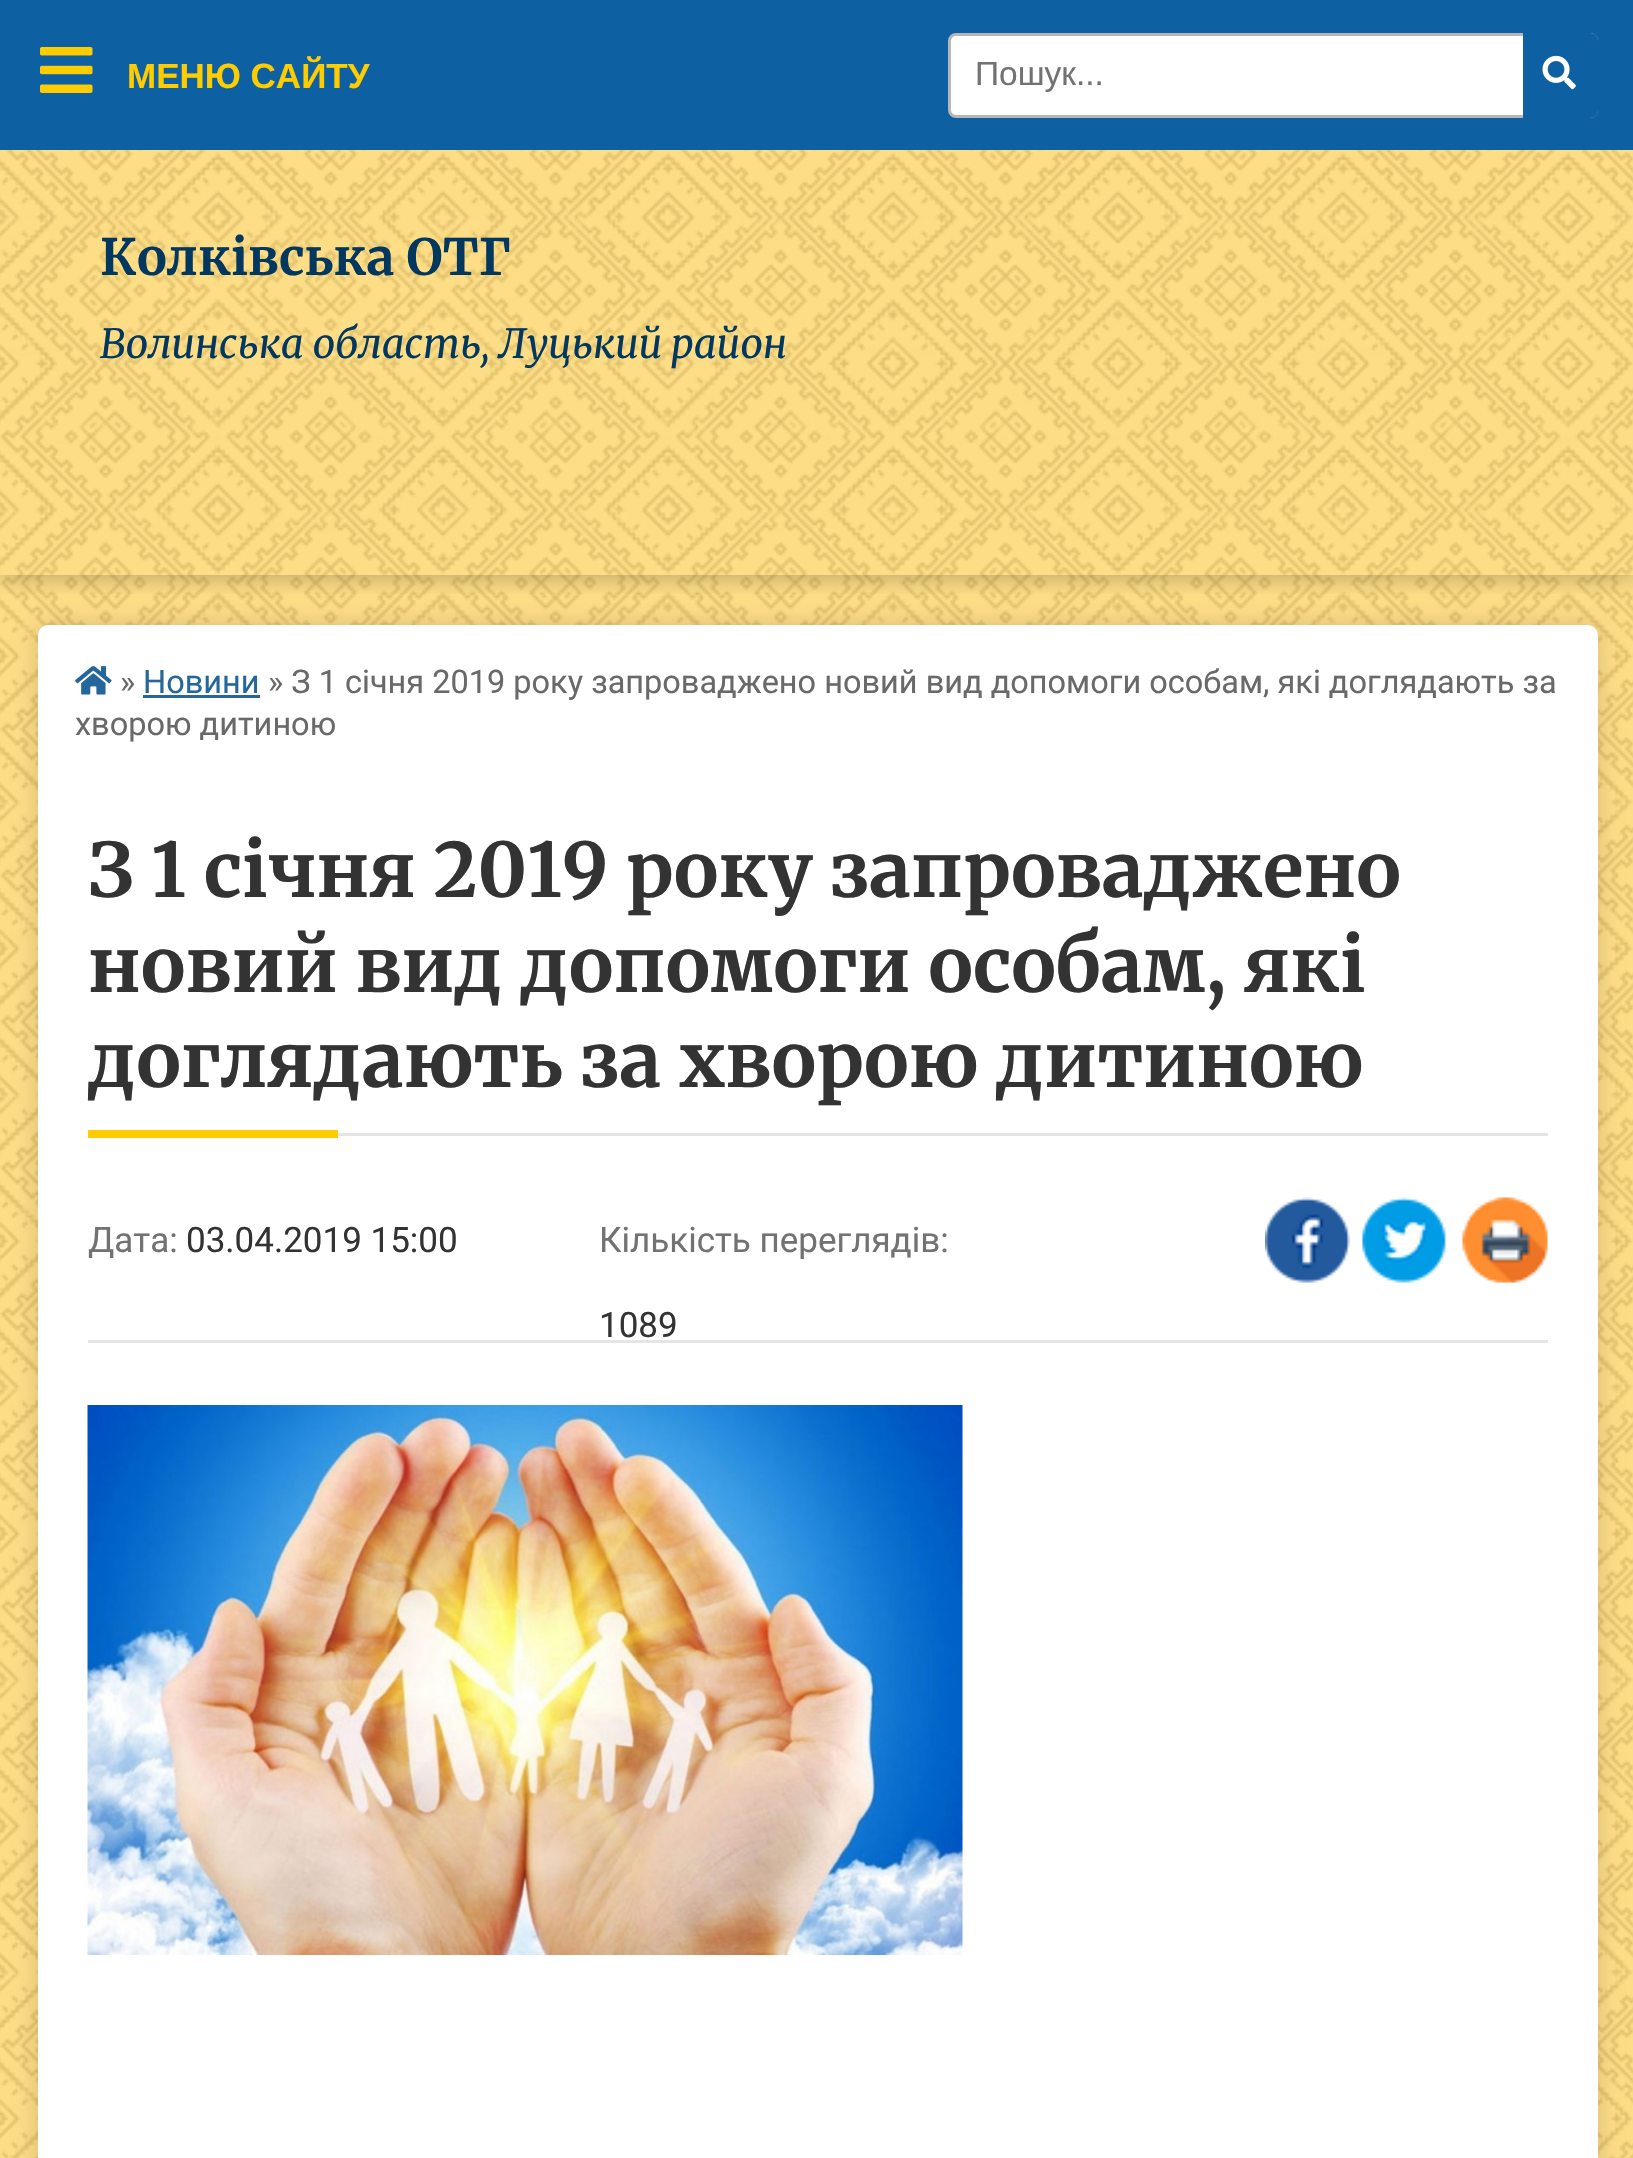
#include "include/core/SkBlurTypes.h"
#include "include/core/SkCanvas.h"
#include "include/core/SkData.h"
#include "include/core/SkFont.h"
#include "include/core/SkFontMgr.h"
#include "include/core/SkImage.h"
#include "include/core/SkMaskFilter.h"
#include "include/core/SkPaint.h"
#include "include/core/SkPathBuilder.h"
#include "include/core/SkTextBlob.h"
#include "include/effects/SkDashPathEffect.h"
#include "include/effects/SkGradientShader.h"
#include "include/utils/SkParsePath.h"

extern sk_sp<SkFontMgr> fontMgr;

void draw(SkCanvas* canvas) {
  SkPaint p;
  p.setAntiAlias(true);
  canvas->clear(SkColorSetRGB(255, 218, 117));
  canvas->drawImageRect(SkImages::DeferredFromEncodedData(SkData::MakeFromFileName("images/1.png")), SkRect::MakeLTRB(0, 150, 1633, 2158), SkSamplingOptions());
  p.setColor(SkColorSetARGB(38, 0, 0, 0));
  p.setMaskFilter(SkMaskFilter::MakeBlur(kNormal_SkBlurStyle, 12.5f));
  canvas->drawRoundRect(SkRect::MakeLTRB(38, 625, 1598, 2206), 10, 10, p);
  p.setMaskFilter(nullptr);
  p.setColor(SK_ColorWHITE);
  canvas->drawRoundRect(SkRect::MakeLTRB(38, 625, 1598, 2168), 10, 10, p);
  canvas->save();
  canvas->clipRect(SkRect::MakeLTRB(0, 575, 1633, 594));
  p.setColor(SkColorSetARGB(77, 0, 0, 0));
  p.setMaskFilter(SkMaskFilter::MakeBlur(kNormal_SkBlurStyle, 12.5f));
  canvas->drawRect(SkRect::MakeLTRB(0, 150, 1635, 575), p);
  p.setMaskFilter(nullptr);
  canvas->restore();
  p.setColor(SkColorSetRGB(13, 97, 162));
  canvas->drawRect(SkRect::MakeLTRB(0, 0, 1633, 150), p);
  canvas->drawImageRect(SkImages::DeferredFromEncodedData(SkData::MakeFromFileName("images/2.png")), SkRect::MakeLTRB(40, 47, 93, 93), SkSamplingOptions());
  canvas->drawImageRect(SkImages::DeferredFromEncodedData(SkData::MakeFromFileName("images/3.png")), SkRect::MakeLTRB(75, 666, 112, 695), SkSamplingOptions());
  p.setColor(SkColorSetRGB(37, 102, 156));
  canvas->drawRect(SkRect::MakeLTRB(143, 695, 260, 698), p);
  p.setColor(SkColorSetRGB(229, 229, 229));
  canvas->drawRect(SkRect::MakeLTRB(338, 1133, 1548, 1136), p);
  p.setColor(SkColorSetRGB(255, 204, 0));
  canvas->drawRect(SkRect::MakeLTRB(88, 1130, 338, 1138), p);
  canvas->drawImageRect(SkImages::DeferredFromEncodedData(SkData::MakeFromFileName("images/4.png")), SkRect::MakeLTRB(1265, 1197, 1350, 1283), SkSamplingOptions());
  canvas->drawImageRect(SkImages::DeferredFromEncodedData(SkData::MakeFromFileName("images/5.png")), SkRect::MakeLTRB(1362, 1197, 1446, 1283), SkSamplingOptions());
  canvas->drawImageRect(SkImages::DeferredFromEncodedData(SkData::MakeFromFileName("images/6.png")), SkRect::MakeLTRB(1462, 1197, 1548, 1283), SkSamplingOptions());
  p.setColor(SkColorSetRGB(229, 229, 229));
  canvas->drawRect(SkRect::MakeLTRB(88, 1340, 1548, 1343), p);
  canvas->drawImageRect(SkImages::DeferredFromEncodedData(SkData::MakeFromFileName("images/7.png")), SkRect::MakeLTRB(87, 1405, 963, 1955), SkSamplingOptions());
  p.setColor(SK_ColorWHITE);
  canvas->drawRoundRect(SkRect::MakeLTRB(949.5f, 34.5f, 1596.5f, 116.5f), 6.5f, 6.5f, p);
  p.setStyle(SkPaint::kStroke_Style);
  p.setStrokeWidth(3);
  p.setColor(SkColorSetRGB(183, 183, 183));
  canvas->drawRoundRect(SkRect::MakeLTRB(949.5f, 34.5f, 1596.5f, 116.5f), 6.5f, 6.5f, p);
  p.setStyle(SkPaint::kFill_Style);
  p.setColor(SkColorSetRGB(13, 97, 162));
  canvas->drawPath(SkPathBuilder().moveTo(1523, 33).lineTo(1590, 33).cubicTo(1594.5f, 33, 1598, 36.5f, 1598, 41).lineTo(1598, 110).cubicTo(1598, 114.5f, 1594.5f, 118, 1590, 118).lineTo(1523, 118).close().detach(), p);
  canvas->drawImageRect(SkImages::DeferredFromEncodedData(SkData::MakeFromFileName("images/8.png")), SkRect::MakeLTRB(1542, 55, 1576, 90), SkSamplingOptions());
  SkFont font1(fontMgr->matchFamilyStyle("Liberation Sans", SkFontStyle::Bold()), 35);
  font1.setSubpixel(true);
  p.setColor(SkColorSetRGB(255, 204, 0));
  canvas->drawString("МЕНЮ САЙТУ", 127, 88, font1, p);
  SkFont font2(fontMgr->matchFamilyStyle("Roboto", SkFontStyle::Normal()), 32.5f);
  font2.setSubpixel(true);
  p.setColor(SkColorSetRGB(105, 105, 105));
  canvas->drawString("»", 120, 693, font2, p);
  p.setColor(SkColorSetRGB(37, 102, 156));
  canvas->drawString("Новини", 143, 693, font2, p);
  p.setColor(SkColorSetRGB(105, 105, 105));
  canvas->drawString("» З 1 січня 2019 року запроваджено новий вид допомоги особам, які доглядають за", 268, 693, font2, p);
  canvas->drawString("хворою дитиною", 75, 735, font2, p);
  SkFont font3(fontMgr->matchFamilyStyle("Merriweather", SkFontStyle(300, SkFontStyle::kNormal_Width, SkFontStyle::kUpright_Slant)), 75);
  font3.setSubpixel(true);
  p.setColor(SkColorSetRGB(51, 51, 51));
  canvas->drawString("З 1 січня 2019 року запроваджено", 88, 897, font3, p);
  canvas->drawString("новий вид допомоги особам, які", 88, 992, font3, p);
  canvas->drawString("доглядають за хворою дитиною", 88, 1087, font3, p);
  SkFont font4(fontMgr->matchFamilyStyle("Roboto", SkFontStyle::Normal()), 35);
  font4.setSubpixel(true);
  p.setColor(SkColorSetRGB(114, 114, 114));
  canvas->drawString("Дата:", 88, 1252, font4, p);
  p.setColor(SkColorSetRGB(51, 51, 51));
  canvas->drawString("03.04.2019 15:00", 186, 1252, font4, p);
  p.setColor(SkColorSetRGB(114, 114, 114));
  canvas->drawString("Кількість переглядів:", 599, 1252, font4, p);
  p.setColor(SkColorSetRGB(51, 51, 51));
  canvas->drawString("1089", 599, 1337, font4, p);
  SkFont font5(fontMgr->matchFamilyStyle("Liberation Sans", SkFontStyle::Normal()), 33.5f);
  font5.setSubpixel(true);
  p.setColor(SkColorSetRGB(114, 114, 114));
  canvas->drawString("Пошук...", 975, 85, font5, p);
  SkFont font6(fontMgr->matchFamilyStyle("Merriweather", SkFontStyle(300, SkFontStyle::kNormal_Width, SkFontStyle::kUpright_Slant)), 50);
  font6.setSubpixel(true);
  p.setColor(SkColorSetRGB(2, 55, 95));
  canvas->drawString("Колківська ОТГ", 100, 275, font6, p);
  SkFont font7(fontMgr->matchFamilyStyle("Merriweather", SkFontStyle(300, SkFontStyle::kNormal_Width, SkFontStyle::kItalic_Slant)), 40);
  font7.setSubpixel(true);
  canvas->drawString("Волинська область, Луцький район", 100, 358, font7, p);
}
